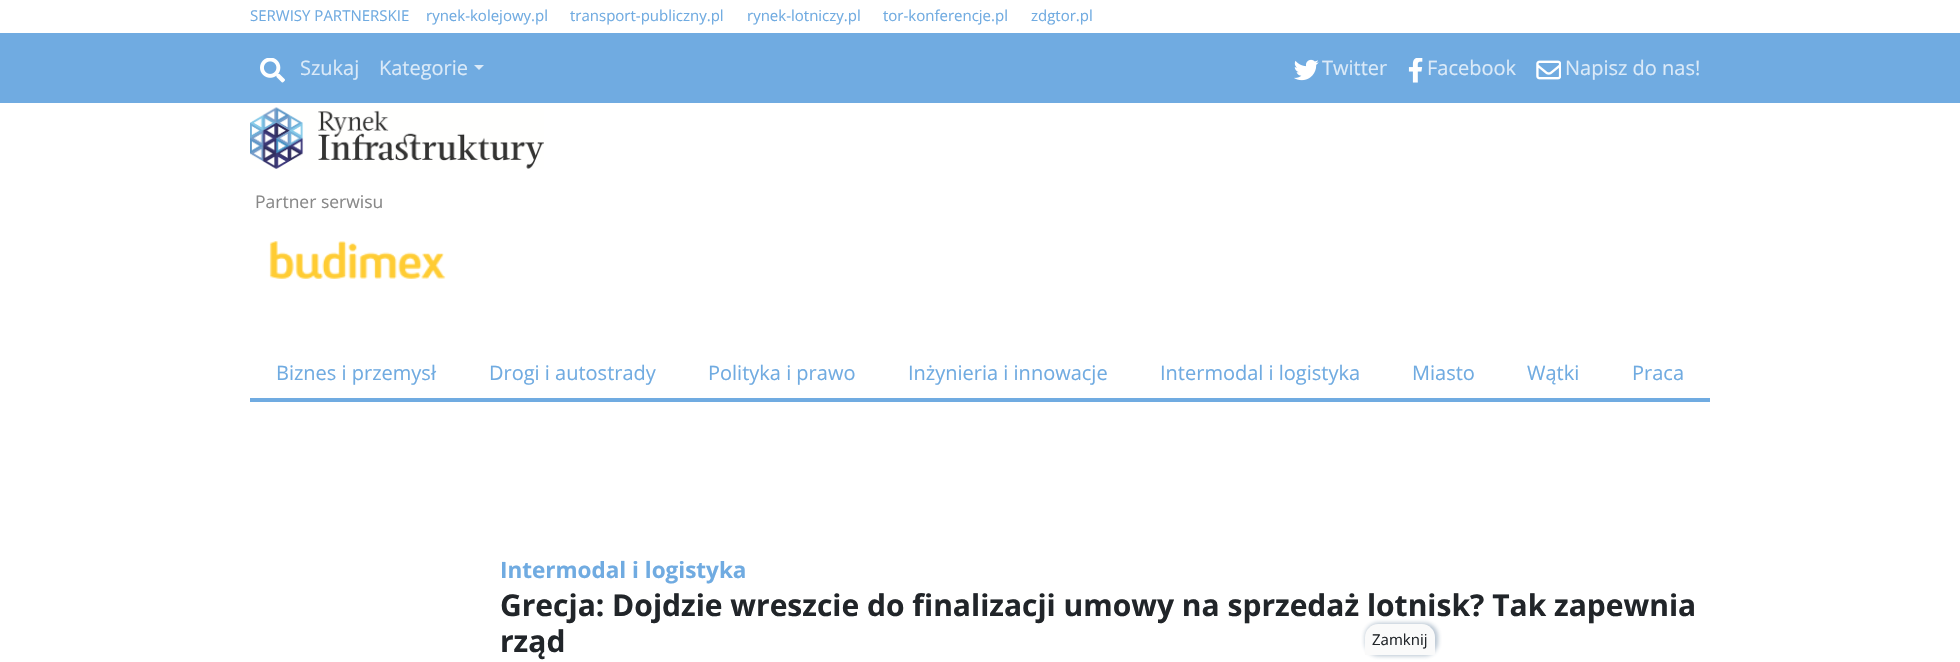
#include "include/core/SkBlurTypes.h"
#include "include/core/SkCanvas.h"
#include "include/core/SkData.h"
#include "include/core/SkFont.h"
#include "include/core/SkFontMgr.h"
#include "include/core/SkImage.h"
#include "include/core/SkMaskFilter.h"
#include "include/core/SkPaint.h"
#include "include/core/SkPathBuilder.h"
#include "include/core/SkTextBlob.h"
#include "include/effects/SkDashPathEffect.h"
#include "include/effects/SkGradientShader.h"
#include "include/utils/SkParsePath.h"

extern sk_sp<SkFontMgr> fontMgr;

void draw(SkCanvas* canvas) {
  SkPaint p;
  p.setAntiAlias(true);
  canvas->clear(SK_ColorWHITE);
  p.setColor(SkColorSetRGB(112, 171, 225));
  canvas->drawRect(SkRect::MakeLTRB(0, 33, 1960, 103), p);
  canvas->drawImageRect(SkImages::DeferredFromEncodedData(SkData::MakeFromFileName("images/1.png")), SkRect::MakeLTRB(260, 58, 285, 83), SkSamplingOptions());
  p.setColor(SkColorSetRGB(219, 234, 248));
  canvas->drawPath(SkPathBuilder().moveTo(474, 65).lineTo(484, 65).lineTo(479, 70).close().detach(), p);
  canvas->drawImageRect(SkImages::DeferredFromEncodedData(SkData::MakeFromFileName("images/2.png")), SkRect::MakeLTRB(1294, 59, 1319, 81), SkSamplingOptions());
  canvas->drawImageRect(SkImages::DeferredFromEncodedData(SkData::MakeFromFileName("images/3.png")), SkRect::MakeLTRB(1408, 58, 1423, 83), SkSamplingOptions());
  canvas->drawImageRect(SkImages::DeferredFromEncodedData(SkData::MakeFromFileName("images/4.png")), SkRect::MakeLTRB(1536, 60, 1561, 80), SkSamplingOptions());
  canvas->drawImageRect(SkImages::DeferredFromEncodedData(SkData::MakeFromFileName("images/5.png")), SkRect::MakeLTRB(250, 107, 544, 169), SkSamplingOptions());
  canvas->drawImageRect(SkImages::DeferredFromEncodedData(SkData::MakeFromFileName("images/6.png")), SkRect::MakeLTRB(269, 241, 446, 279), SkSamplingOptions());
  p.setColor(SkColorSetRGB(112, 171, 225));
  canvas->drawRect(SkRect::MakeLTRB(250, 398, 1710, 402), p);
  p.setColor(SkColorSetARGB(77, 17, 58, 102));
  p.setMaskFilter(SkMaskFilter::MakeBlur(kNormal_SkBlurStyle, 2));
  canvas->drawRoundRect(SkRect::MakeLTRB(1365, 623, 1438, 656), 14, 14, p);
  p.setMaskFilter(nullptr);
  p.setColor(SkColorSetRGB(250, 250, 250));
  canvas->drawPath(SkPathBuilder().moveTo(1378, 624).lineTo(1422, 624).cubicTo(1429, 624, 1435, 630, 1435, 637).lineTo(1435, 655).lineTo(1365, 655).lineTo(1365, 637).cubicTo(1365, 630, 1371, 624, 1378, 624).close().detach(), p);
  SkFont font1(fontMgr->matchFamilyStyle("Open Sans", SkFontStyle::Normal()), 15);
  font1.setSubpixel(true);
  p.setColor(SkColorSetRGB(112, 171, 225));
  canvas->drawString("SERWISY PARTNERSKIE", 250, 21, font1, p);
  canvas->drawString("rynek-kolejowy.pl", 426, 21, font1, p);
  canvas->drawString("transport-publiczny.pl", 570, 21, font1, p);
  canvas->drawString("rynek-lotniczy.pl", 747, 21, font1, p);
  canvas->drawString("tor-konferencje.pl", 883, 21, font1, p);
  canvas->drawString("zdgtor.pl", 1031, 21, font1, p);
  SkFont font2(fontMgr->matchFamilyStyle("Open Sans", SkFontStyle::Normal()), 20);
  font2.setSubpixel(true);
  p.setColor(SkColorSetRGB(219, 234, 248));
  canvas->drawString("Szukaj", 300, 75, font2, p);
  canvas->drawString("Kategorie", 379, 75, font2, p);
  canvas->drawString("Twitter", 1322, 75, font2, p);
  canvas->drawString("Facebook", 1427, 75, font2, p);
  canvas->drawString("Napisz do nas!", 1565, 75, font2, p);
  SkFont font3(fontMgr->matchFamilyStyle("Open Sans", SkFontStyle::Normal()), 17.5f);
  font3.setSubpixel(true);
  p.setColor(SkColorSetRGB(136, 136, 136));
  canvas->drawString("Partner serwisu", 255, 208, font3, p);
  p.setColor(SkColorSetRGB(112, 171, 225));
  canvas->drawString("Biznes i przemysł", 276, 380, font2, p);
  canvas->drawString("Drogi i autostrady", 489, 380, font2, p);
  canvas->drawString("Polityka i prawo", 708, 380, font2, p);
  canvas->drawString("Inżynieria i innowacje", 908, 380, font2, p);
  canvas->drawString("Intermodal i logistyka", 1160, 380, font2, p);
  canvas->drawString("Miasto", 1412, 380, font2, p);
  canvas->drawString("Wątki", 1527, 380, font2, p);
  canvas->drawString("Praca", 1632, 380, font2, p);
  SkFont font4(fontMgr->matchFamilyStyle("Open Sans", SkFontStyle::Bold()), 22.5f);
  font4.setSubpixel(true);
  canvas->drawString("Intermodal i logistyka", 500, 578, font4, p);
  SkFont font5(fontMgr->matchFamilyStyle("Open Sans", SkFontStyle::Bold()), 30);
  font5.setSubpixel(true);
  p.setColor(SkColorSetRGB(33, 37, 41));
  canvas->drawString("Grecja: Dojdzie wreszcie do finalizacji umowy na sprzedaż lotnisk? Tak zapewnia", 500, 616, font5, p);
  canvas->drawString("rząd", 500, 652, font5, p);
  canvas->drawString("Zamknij", 1372, 645, font1, p);
}
